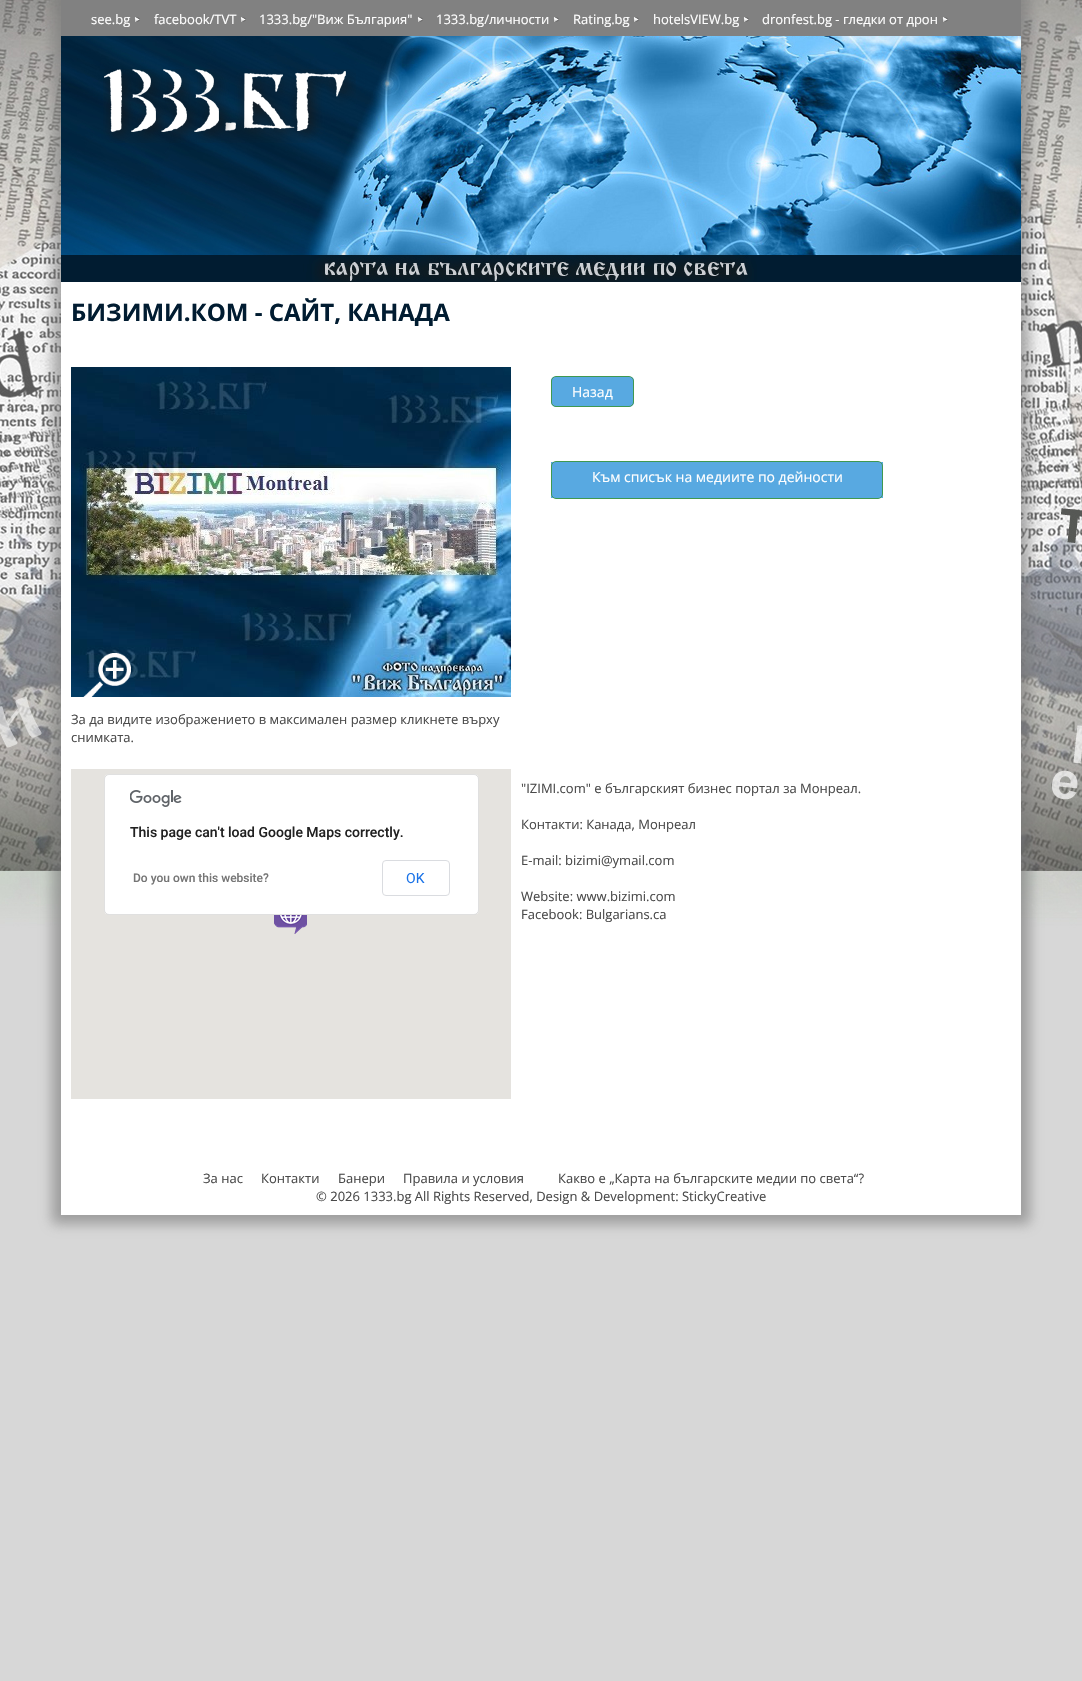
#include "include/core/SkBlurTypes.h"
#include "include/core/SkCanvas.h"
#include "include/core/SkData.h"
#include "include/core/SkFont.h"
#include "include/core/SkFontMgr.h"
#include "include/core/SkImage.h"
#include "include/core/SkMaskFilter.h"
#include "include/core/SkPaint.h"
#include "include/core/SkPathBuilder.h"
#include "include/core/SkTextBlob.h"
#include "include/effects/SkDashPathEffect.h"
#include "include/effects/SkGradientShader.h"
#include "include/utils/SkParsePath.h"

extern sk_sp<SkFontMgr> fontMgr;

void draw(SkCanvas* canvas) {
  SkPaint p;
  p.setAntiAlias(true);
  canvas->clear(SK_ColorWHITE);
  canvas->drawImageRect(SkImages::DeferredFromEncodedData(SkData::MakeFromFileName("images/1.png")), SkRect::MakeLTRB(0, 0, 1082, 1681), SkSamplingOptions());
  p.setColor(SkColorSetARGB(153, 119, 119, 119));
  p.setMaskFilter(SkMaskFilter::MakeBlur(kNormal_SkBlurStyle, 6));
  canvas->drawRect(SkRect::MakeLTRB(52, -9, 1030, 1224), p);
  p.setMaskFilter(nullptr);
  p.setColor(SK_ColorWHITE);
  canvas->drawRect(SkRect::MakeLTRB(61, 282, 1021, 1215), p);
  canvas->drawImageRect(SkImages::DeferredFromEncodedData(SkData::MakeFromFileName("images/2.png")), SkRect::MakeLTRB(61, 36, 1021, 282), SkSamplingOptions());
  p.setColor(SkColorSetRGB(129, 129, 129));
  canvas->drawRect(SkRect::MakeLTRB(61, 0, 1021, 36), p);
  canvas->drawImageRect(SkImages::DeferredFromEncodedData(SkData::MakeFromFileName("images/3.png")), SkRect::MakeLTRB(134, 17, 140, 22), SkSamplingOptions());
  canvas->drawImageRect(SkImages::DeferredFromEncodedData(SkData::MakeFromFileName("images/3.png")), SkRect::MakeLTRB(240, 17, 246, 22), SkSamplingOptions());
  canvas->drawImageRect(SkImages::DeferredFromEncodedData(SkData::MakeFromFileName("images/3.png")), SkRect::MakeLTRB(417, 17, 423, 22), SkSamplingOptions());
  canvas->drawImageRect(SkImages::DeferredFromEncodedData(SkData::MakeFromFileName("images/3.png")), SkRect::MakeLTRB(553, 17, 559, 22), SkSamplingOptions());
  canvas->drawImageRect(SkImages::DeferredFromEncodedData(SkData::MakeFromFileName("images/3.png")), SkRect::MakeLTRB(633, 17, 639, 22), SkSamplingOptions());
  canvas->drawImageRect(SkImages::DeferredFromEncodedData(SkData::MakeFromFileName("images/3.png")), SkRect::MakeLTRB(743, 17, 749, 22), SkSamplingOptions());
  canvas->drawImageRect(SkImages::DeferredFromEncodedData(SkData::MakeFromFileName("images/3.png")), SkRect::MakeLTRB(942, 17, 948, 22), SkSamplingOptions());
  canvas->drawImageRect(SkImages::DeferredFromEncodedData(SkData::MakeFromFileName("images/4.png")), SkRect::MakeLTRB(103, 69, 356, 143), SkSamplingOptions());
  canvas->drawImageRect(SkImages::DeferredFromEncodedData(SkData::MakeFromFileName("images/5.png")), SkRect::MakeLTRB(551, 377, 634, 407), SkSamplingOptions());
  p.setStyle(SkPaint::kStroke_Style);
  p.setStrokeWidth(1);
  p.setColor(SkColorSetRGB(64, 152, 80));
  canvas->drawRoundRect(SkRect::MakeLTRB(551.5f, 376.5f, 633.5f, 406.5f), 4.5f, 4.5f, p);
  p.setStyle(SkPaint::kFill_Style);
  p.setColor(SkColorSetRGB(88, 169, 225));
  canvas->drawRect(SkRect::MakeLTRB(551, 462, 883, 498), p);
  p.setStyle(SkPaint::kStroke_Style);
  p.setColor(SkColorSetRGB(64, 152, 80));
  canvas->drawRoundRect(SkRect::MakeLTRB(551.5f, 461.5f, 882.5f, 498.5f), 4.5f, 4.5f, p);
  canvas->drawImageRect(SkImages::DeferredFromEncodedData(SkData::MakeFromFileName("images/6.png")), SkRect::MakeLTRB(71, 367, 511, 697), SkSamplingOptions());
  canvas->drawImageRect(SkImages::DeferredFromEncodedData(SkData::MakeFromFileName("images/7.png")), SkRect::MakeLTRB(83, 653, 131, 697), SkSamplingOptions());
  p.setStyle(SkPaint::kFill_Style);
  p.setColor(SkColorSetRGB(229, 227, 223));
  canvas->drawRect(SkRect::MakeLTRB(71, 769, 511, 1099), p);
  canvas->drawImageRect(SkImages::DeferredFromEncodedData(SkData::MakeFromFileName("images/8.png")), SkRect::MakeLTRB(274, 915, 307, 934), SkSamplingOptions());
  p.setColor(SK_ColorWHITE);
  canvas->drawRoundRect(SkRect::MakeLTRB(104, 774, 479, 915), 5, 5, p);
  p.setStyle(SkPaint::kStroke_Style);
  p.setColor(SkColorSetARGB(31, 0, 0, 0));
  canvas->drawRoundRect(SkRect::MakeLTRB(104.5f, 774.5f, 478.5f, 914.5f), 4.5f, 4.5f, p);
  canvas->drawImageRect(SkImages::DeferredFromEncodedData(SkData::MakeFromFileName("images/9.png")), SkRect::MakeLTRB(130, 790, 182, 807), SkSamplingOptions());
  p.setColor(SkColorSetRGB(218, 220, 224));
  canvas->drawRoundRect(SkRect::MakeLTRB(382.5f, 860.5f, 449.5f, 895.5f), 3.5f, 3.5f, p);
  SkFont font1(fontMgr->matchFamilyStyle("Open Sans", SkFontStyle::Normal()), 13);
  font1.setSubpixel(true);
  p.setStyle(SkPaint::kFill_Style);
  p.setColor(SK_ColorWHITE);
  canvas->drawString("see.bg", 91, 24, font1, p);
  canvas->drawString("facebook/TVT", 154, 24, font1, p);
  canvas->drawString("1333.bg/\"Виж България\"", 259, 24, font1, p);
  canvas->drawString("1333.bg/личности", 436, 24, font1, p);
  canvas->drawString("Rating.bg", 573, 24, font1, p);
  canvas->drawString("hotelsVIEW.bg", 653, 24, font1, p);
  canvas->drawString("dronfest.bg - гледки от дрон", 762, 24, font1, p);
  SkFont font2(fontMgr->matchFamilyStyle("Open Sans", SkFontStyle::Bold()), 24);
  font2.setSubpixel(true);
  p.setColor(SkColorSetRGB(1, 28, 49));
  canvas->drawString("БИЗИМИ.КОМ - САЙТ, КАНАДА", 71, 321, font2, p);
  SkFont font3(fontMgr->matchFamilyStyle("Open Sans", SkFontStyle::Normal()), 14);
  font3.setSubpixel(true);
  p.setColor(SK_ColorWHITE);
  canvas->drawString("Назад", 572, 397, font3, p);
  canvas->drawString("Към списък на медиите по дейности", 592, 482, font3, p);
  p.setColor(SkColorSetRGB(74, 74, 74));
  canvas->drawString("За да видите изображението в максимален размер кликнете върху", 71, 724, font1, p);
  canvas->drawString("снимката.", 71, 742, font1, p);
  SkFont font4(fontMgr->matchFamilyStyle("Roboto", SkFontStyle(500, SkFontStyle::kNormal_Width, SkFontStyle::kUpright_Slant)), 14);
  font4.setSubpixel(true);
  p.setColor(SkColorSetRGB(33, 33, 33));
  canvas->drawString("This page can't load Google Maps correctly.", 130, 837, font4, p);
  SkFont font5(fontMgr->matchFamilyStyle("Roboto", SkFontStyle(500, SkFontStyle::kNormal_Width, SkFontStyle::kUpright_Slant)), 12);
  font5.setSubpixel(true);
  p.setColor(SkColorSetRGB(117, 117, 117));
  canvas->drawString("Do you own this website?", 133, 882, font5, p);
  SkFont font6(fontMgr->matchFamilyStyle("Roboto", SkFontStyle::Normal()), 14);
  font6.setSubpixel(true);
  p.setColor(SkColorSetRGB(26, 115, 232));
  canvas->drawString("OK", 406, 883, font6, p);
  p.setColor(SkColorSetRGB(74, 74, 74));
  canvas->drawString("\"IZIMI.com\" e българският бизнес портал за Монреал.", 521, 793, font1, p);
  canvas->drawString("Контакти: Канада, Монреал", 521, 829, font1, p);
  canvas->drawString("E-mail: bizimi@ymail.com", 521, 865, font1, p);
  canvas->drawString("Website: www.bizimi.com", 521, 901, font1, p);
  canvas->drawString("Facebook: Bulgarians.ca", 521, 919, font1, p);
  canvas->drawString("За нас", 203, 1183, font1, p);
  canvas->drawString("Контакти", 261, 1183, font1, p);
  canvas->drawString("Банери", 338, 1183, font1, p);
  canvas->drawString("Правила и условия", 403, 1183, font1, p);
  canvas->drawString("Какво е „Карта на българските медии по света“?", 558, 1183, font1, p);
  canvas->drawString("© 2026 1333.bg All Rights Reserved, Design & Development: StickyCreative", 316, 1201, font1, p);
}
